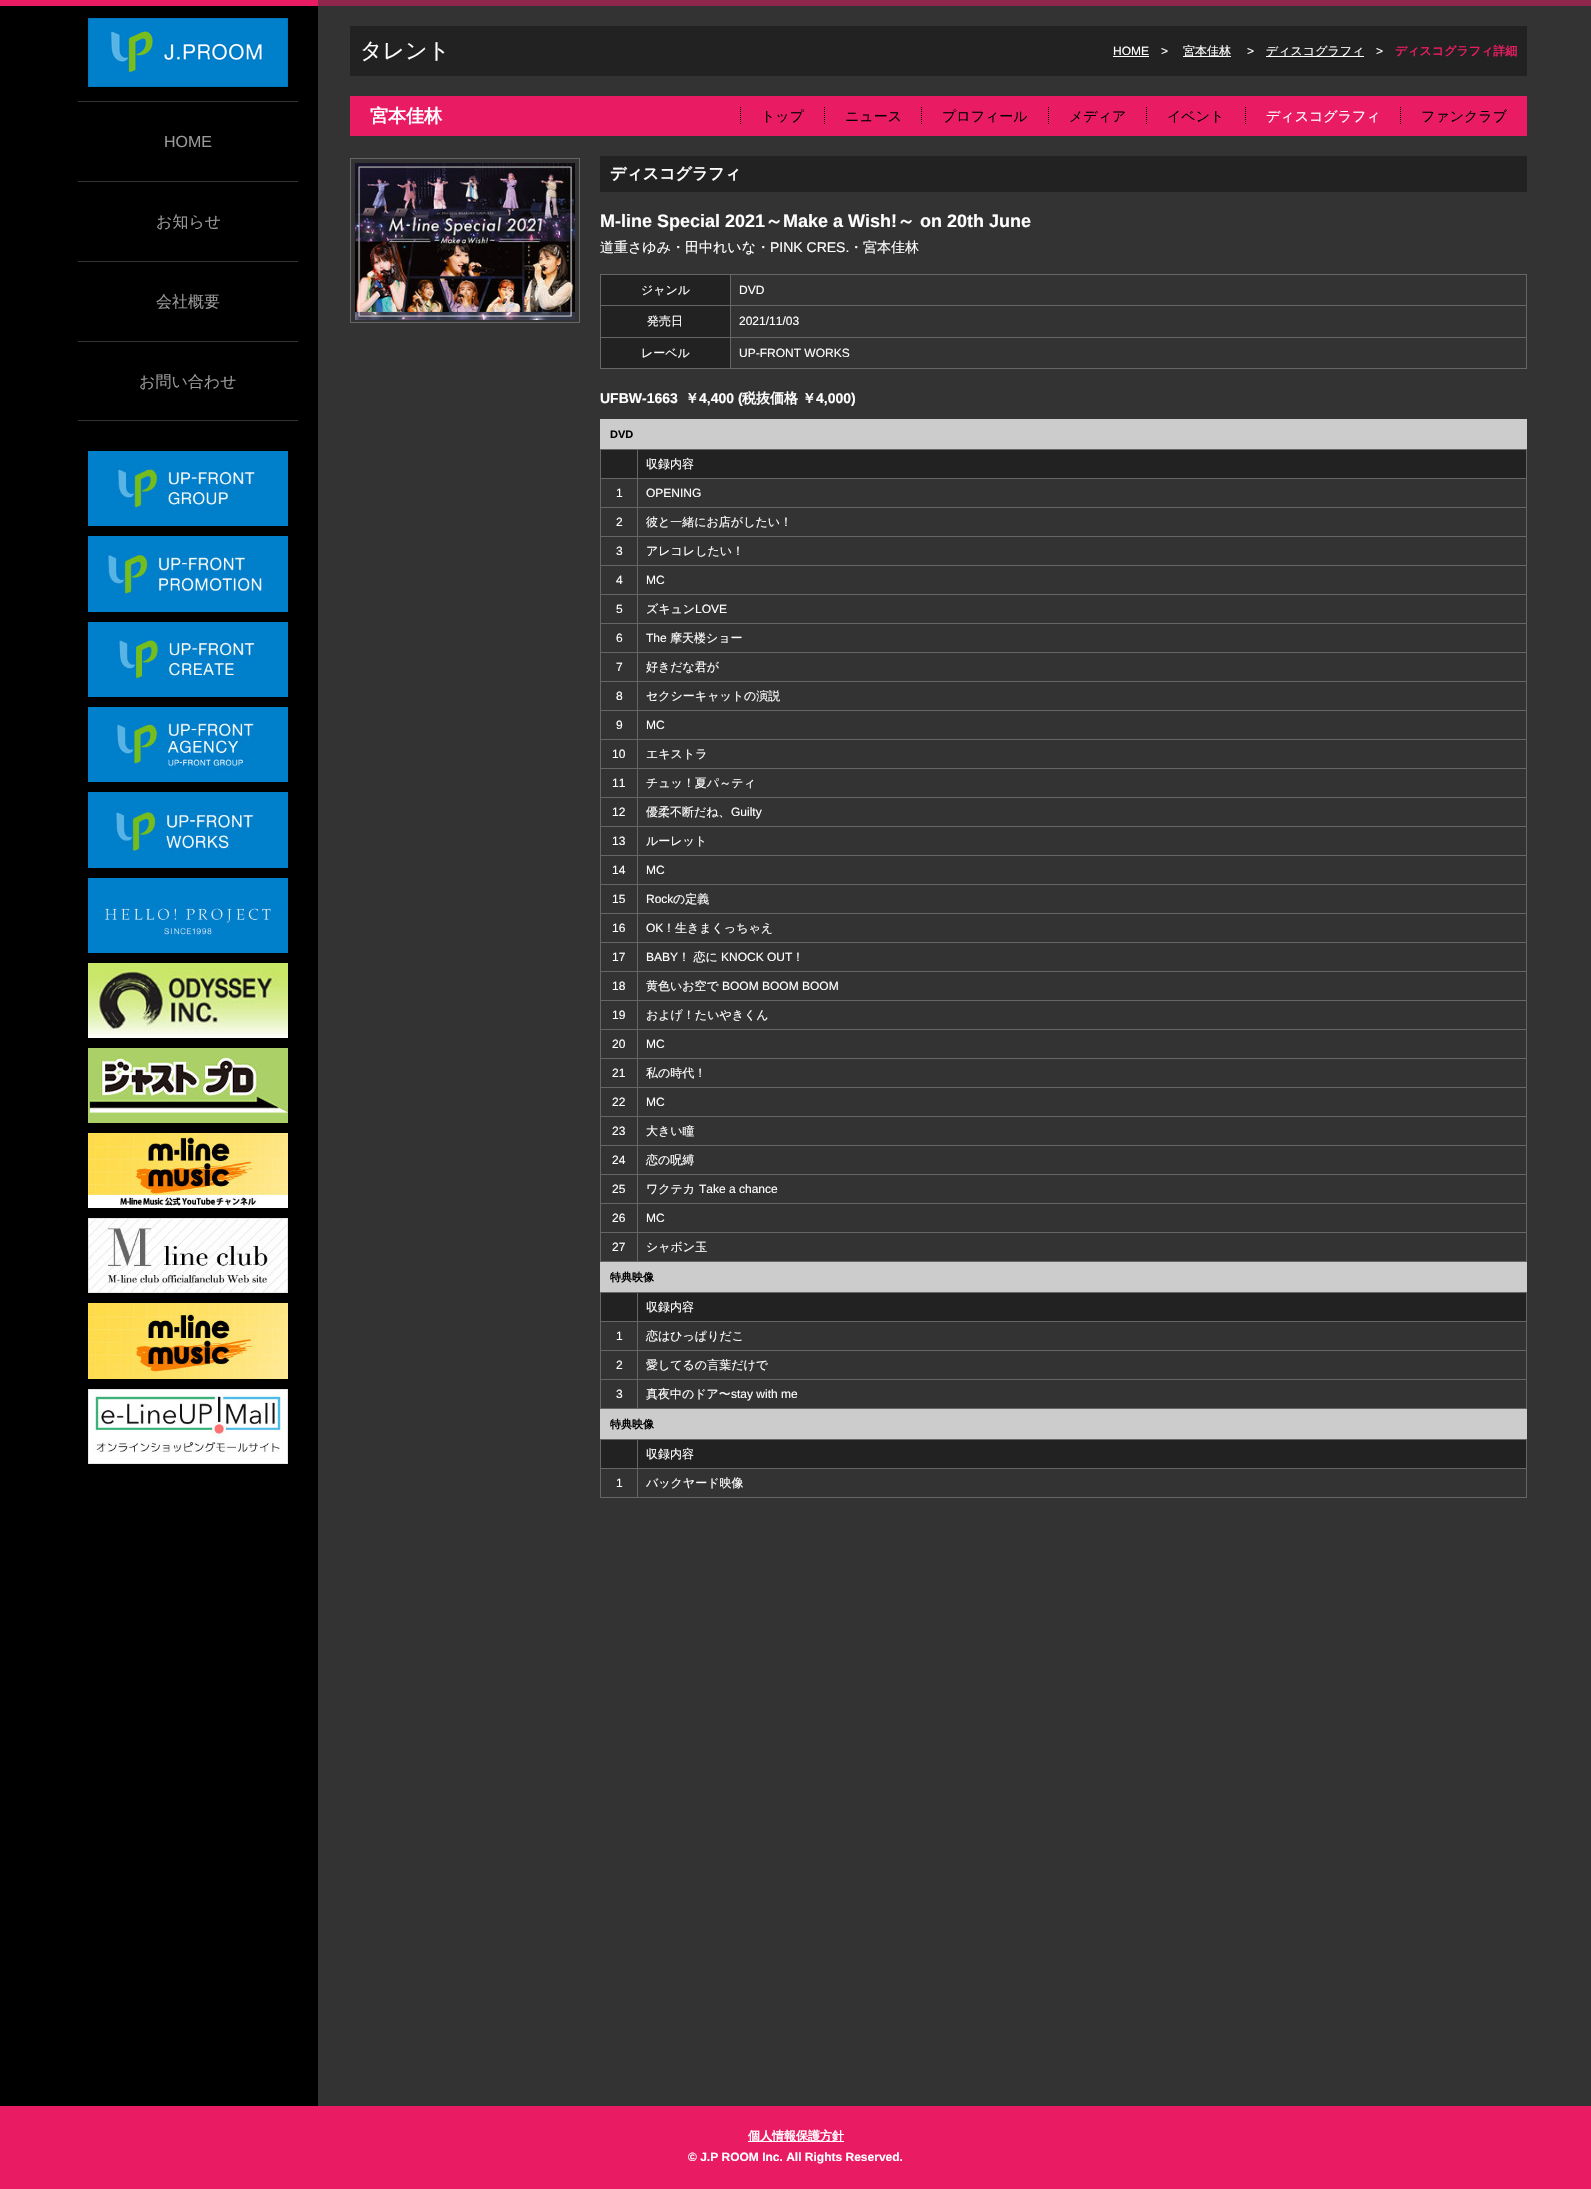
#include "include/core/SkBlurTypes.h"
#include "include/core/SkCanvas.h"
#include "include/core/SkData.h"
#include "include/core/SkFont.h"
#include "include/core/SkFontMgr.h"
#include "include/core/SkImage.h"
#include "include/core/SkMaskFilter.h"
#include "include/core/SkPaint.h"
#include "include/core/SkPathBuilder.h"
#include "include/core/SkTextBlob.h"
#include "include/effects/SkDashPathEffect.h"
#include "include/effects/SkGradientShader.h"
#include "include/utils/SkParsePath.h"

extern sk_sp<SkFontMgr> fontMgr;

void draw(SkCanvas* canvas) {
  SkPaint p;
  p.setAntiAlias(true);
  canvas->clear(SkColorSetRGB(51, 51, 51));
  p.setColor(SK_ColorBLACK);
  canvas->drawRect(SkRect::MakeLTRB(0, 6, 318, 2106), p);
  p.setColor(SkColorSetRGB(233, 28, 99));
  canvas->drawRect(SkRect::MakeLTRB(0, 0, 318, 6), p);
  canvas->drawImageRect(SkImages::DeferredFromEncodedData(SkData::MakeFromFileName("images/1.png")), SkRect::MakeLTRB(88, 18, 288, 87), SkSamplingOptions());
  p.setColor(SkColorSetRGB(51, 51, 51));
  canvas->drawRect(SkRect::MakeLTRB(78, 101, 298, 102), p);
  canvas->drawRect(SkRect::MakeLTRB(78, 181, 298, 182), p);
  canvas->drawRect(SkRect::MakeLTRB(78, 261, 298, 262), p);
  canvas->drawRect(SkRect::MakeLTRB(78, 341, 298, 342), p);
  canvas->drawRect(SkRect::MakeLTRB(78, 420, 298, 421), p);
  canvas->drawImageRect(SkImages::DeferredFromEncodedData(SkData::MakeFromFileName("images/2.png")), SkRect::MakeLTRB(88, 451, 288, 526), SkSamplingOptions());
  canvas->drawImageRect(SkImages::DeferredFromEncodedData(SkData::MakeFromFileName("images/3.png")), SkRect::MakeLTRB(88, 536, 288, 612), SkSamplingOptions());
  canvas->drawImageRect(SkImages::DeferredFromEncodedData(SkData::MakeFromFileName("images/4.png")), SkRect::MakeLTRB(88, 622, 288, 697), SkSamplingOptions());
  canvas->drawImageRect(SkImages::DeferredFromEncodedData(SkData::MakeFromFileName("images/5.png")), SkRect::MakeLTRB(88, 707, 288, 782), SkSamplingOptions());
  canvas->drawImageRect(SkImages::DeferredFromEncodedData(SkData::MakeFromFileName("images/6.png")), SkRect::MakeLTRB(88, 792, 288, 868), SkSamplingOptions());
  canvas->drawImageRect(SkImages::DeferredFromEncodedData(SkData::MakeFromFileName("images/7.png")), SkRect::MakeLTRB(88, 878, 288, 953), SkSamplingOptions());
  canvas->drawImageRect(SkImages::DeferredFromEncodedData(SkData::MakeFromFileName("images/8.png")), SkRect::MakeLTRB(88, 963, 288, 1038), SkSamplingOptions());
  canvas->drawImageRect(SkImages::DeferredFromEncodedData(SkData::MakeFromFileName("images/9.png")), SkRect::MakeLTRB(88, 1048, 288, 1123), SkSamplingOptions());
  canvas->drawImageRect(SkImages::DeferredFromEncodedData(SkData::MakeFromFileName("images/10.png")), SkRect::MakeLTRB(88, 1133, 288, 1208), SkSamplingOptions());
  canvas->drawImageRect(SkImages::DeferredFromEncodedData(SkData::MakeFromFileName("images/11.png")), SkRect::MakeLTRB(88, 1218, 288, 1293), SkSamplingOptions());
  canvas->drawImageRect(SkImages::DeferredFromEncodedData(SkData::MakeFromFileName("images/12.png")), SkRect::MakeLTRB(88, 1303, 288, 1379), SkSamplingOptions());
  canvas->drawImageRect(SkImages::DeferredFromEncodedData(SkData::MakeFromFileName("images/13.png")), SkRect::MakeLTRB(88, 1389, 288, 1464), SkSamplingOptions());
  p.setColor(SkColorSetRGB(142, 39, 75));
  canvas->drawRect(SkRect::MakeLTRB(318, 0, 1591, 6), p);
  p.setColor(SkColorSetRGB(34, 34, 34));
  canvas->drawRect(SkRect::MakeLTRB(350, 26, 1527, 76), p);
  p.setColor(SK_ColorWHITE);
  canvas->drawRect(SkRect::MakeLTRB(1113, 56, 1149, 57), p);
  canvas->drawRect(SkRect::MakeLTRB(1183, 56, 1231, 57), p);
  canvas->drawRect(SkRect::MakeLTRB(1266, 56, 1364, 57), p);
  p.setColor(SkColorSetRGB(233, 28, 99));
  canvas->drawRect(SkRect::MakeLTRB(350, 96, 1527, 136), p);
  p.setStyle(SkPaint::kStroke_Style);
  p.setStrokeWidth(1);
  p.setColor(SK_ColorBLACK);
  p.setPathEffect(SkDashPathEffect::Make({{1, 1}}, 0));
  canvas->drawPath(SkPathBuilder().moveTo(740.5f, 107).lineTo(740.5f, 125).detach(), p);
  p.setPathEffect(nullptr);
  p.setPathEffect(SkDashPathEffect::Make({{1, 1}}, 0));
  canvas->drawPath(SkPathBuilder().moveTo(824.5f, 107).lineTo(824.5f, 125).detach(), p);
  p.setPathEffect(nullptr);
  p.setPathEffect(SkDashPathEffect::Make({{1, 1}}, 0));
  canvas->drawPath(SkPathBuilder().moveTo(921.5f, 107).lineTo(921.5f, 125).detach(), p);
  p.setPathEffect(nullptr);
  p.setPathEffect(SkDashPathEffect::Make({{1, 1}}, 0));
  canvas->drawPath(SkPathBuilder().moveTo(1048.5f, 107).lineTo(1048.5f, 125).detach(), p);
  p.setPathEffect(nullptr);
  p.setPathEffect(SkDashPathEffect::Make({{1, 1}}, 0));
  canvas->drawPath(SkPathBuilder().moveTo(1146.5f, 107).lineTo(1146.5f, 125).detach(), p);
  p.setPathEffect(nullptr);
  p.setPathEffect(SkDashPathEffect::Make({{1, 1}}, 0));
  canvas->drawPath(SkPathBuilder().moveTo(1245.5f, 107).lineTo(1245.5f, 125).detach(), p);
  p.setPathEffect(nullptr);
  p.setPathEffect(SkDashPathEffect::Make({{1, 1}}, 0));
  canvas->drawPath(SkPathBuilder().moveTo(1400.5f, 107).lineTo(1400.5f, 125).detach(), p);
  p.setPathEffect(nullptr);
  p.setColor(SkColorSetRGB(102, 102, 102));
  canvas->drawRect(SkRect::MakeLTRB(350.5f, 158.5f, 579.5f, 322.5f), p);
  canvas->drawImageRect(SkImages::DeferredFromEncodedData(SkData::MakeFromFileName("images/14.png")), SkRect::MakeLTRB(355, 163, 575, 320), SkSamplingOptions());
  p.setStyle(SkPaint::kFill_Style);
  p.setColor(SkColorSetRGB(34, 34, 34));
  canvas->drawRect(SkRect::MakeLTRB(600, 156, 1527, 192), p);
  p.setColor(SkColorSetRGB(102, 102, 102));
  canvas->drawRect(SkRect::MakeLTRB(600, 274, 1527, 275), p);
  canvas->drawRect(SkRect::MakeLTRB(600, 274, 601, 369), p);
  p.setColor(SkColorSetRGB(34, 34, 34));
  canvas->drawRect(SkRect::MakeLTRB(601, 275, 730, 305), p);
  p.setColor(SkColorSetRGB(102, 102, 102));
  canvas->drawRect(SkRect::MakeLTRB(1526, 274, 1527, 369), p);
  canvas->drawRect(SkRect::MakeLTRB(730, 368, 1527, 369), p);
  canvas->drawRect(SkRect::MakeLTRB(730, 337, 731, 369), p);
  canvas->drawRect(SkRect::MakeLTRB(730, 337, 1527, 338), p);
  canvas->drawRect(SkRect::MakeLTRB(730, 305, 731, 338), p);
  canvas->drawRect(SkRect::MakeLTRB(730, 305, 1527, 306), p);
  canvas->drawRect(SkRect::MakeLTRB(730, 274, 731, 306), p);
  canvas->drawRect(SkRect::MakeLTRB(600, 305, 731, 306), p);
  p.setColor(SkColorSetRGB(34, 34, 34));
  canvas->drawRect(SkRect::MakeLTRB(601, 306, 730, 337), p);
  p.setColor(SkColorSetRGB(102, 102, 102));
  canvas->drawRect(SkRect::MakeLTRB(600, 337, 731, 338), p);
  p.setColor(SkColorSetRGB(34, 34, 34));
  canvas->drawRect(SkRect::MakeLTRB(601, 338, 730, 368), p);
  p.setColor(SkColorSetRGB(102, 102, 102));
  canvas->drawRect(SkRect::MakeLTRB(600, 368, 731, 369), p);
  p.setColor(SkColorSetRGB(204, 204, 204));
  canvas->drawRect(SkRect::MakeLTRB(600, 419, 1527, 449), p);
  p.setColor(SkColorSetRGB(102, 102, 102));
  canvas->drawRect(SkRect::MakeLTRB(600, 449, 1527, 450), p);
  canvas->drawRect(SkRect::MakeLTRB(600, 449, 601, 1262), p);
  p.setColor(SkColorSetRGB(34, 34, 34));
  canvas->drawRect(SkRect::MakeLTRB(601, 450, 637, 478), p);
  p.setColor(SkColorSetRGB(102, 102, 102));
  canvas->drawRect(SkRect::MakeLTRB(1526, 449, 1527, 1262), p);
  canvas->drawRect(SkRect::MakeLTRB(637, 1261, 1527, 1262), p);
  canvas->drawRect(SkRect::MakeLTRB(637, 1232, 638, 1262), p);
  canvas->drawRect(SkRect::MakeLTRB(637, 1232, 1527, 1233), p);
  canvas->drawRect(SkRect::MakeLTRB(637, 1203, 638, 1233), p);
  canvas->drawRect(SkRect::MakeLTRB(637, 1203, 1527, 1204), p);
  canvas->drawRect(SkRect::MakeLTRB(637, 1174, 638, 1204), p);
  canvas->drawRect(SkRect::MakeLTRB(637, 1174, 1527, 1175), p);
  canvas->drawRect(SkRect::MakeLTRB(637, 1145, 638, 1175), p);
  canvas->drawRect(SkRect::MakeLTRB(637, 1145, 1527, 1146), p);
  canvas->drawRect(SkRect::MakeLTRB(637, 1116, 638, 1146), p);
  canvas->drawRect(SkRect::MakeLTRB(637, 1116, 1527, 1117), p);
  canvas->drawRect(SkRect::MakeLTRB(637, 1087, 638, 1117), p);
  canvas->drawRect(SkRect::MakeLTRB(637, 1087, 1527, 1088), p);
  canvas->drawRect(SkRect::MakeLTRB(637, 1058, 638, 1088), p);
  canvas->drawRect(SkRect::MakeLTRB(637, 1058, 1527, 1059), p);
  canvas->drawRect(SkRect::MakeLTRB(637, 1029, 638, 1059), p);
  canvas->drawRect(SkRect::MakeLTRB(637, 1029, 1527, 1030), p);
  canvas->drawRect(SkRect::MakeLTRB(637, 1000, 638, 1030), p);
  canvas->drawRect(SkRect::MakeLTRB(637, 1000, 1527, 1001), p);
  canvas->drawRect(SkRect::MakeLTRB(637, 971, 638, 1001), p);
  canvas->drawRect(SkRect::MakeLTRB(637, 971, 1527, 972), p);
  canvas->drawRect(SkRect::MakeLTRB(637, 942, 638, 972), p);
  canvas->drawRect(SkRect::MakeLTRB(637, 942, 1527, 943), p);
  canvas->drawRect(SkRect::MakeLTRB(637, 913, 638, 943), p);
  canvas->drawRect(SkRect::MakeLTRB(637, 913, 1527, 914), p);
  canvas->drawRect(SkRect::MakeLTRB(637, 884, 638, 914), p);
  canvas->drawRect(SkRect::MakeLTRB(637, 884, 1527, 885), p);
  canvas->drawRect(SkRect::MakeLTRB(637, 855, 638, 885), p);
  canvas->drawRect(SkRect::MakeLTRB(637, 855, 1527, 856), p);
  canvas->drawRect(SkRect::MakeLTRB(637, 826, 638, 856), p);
  canvas->drawRect(SkRect::MakeLTRB(637, 826, 1527, 827), p);
  canvas->drawRect(SkRect::MakeLTRB(637, 797, 638, 827), p);
  canvas->drawRect(SkRect::MakeLTRB(637, 797, 1527, 798), p);
  canvas->drawRect(SkRect::MakeLTRB(637, 768, 638, 798), p);
  canvas->drawRect(SkRect::MakeLTRB(637, 768, 1527, 769), p);
  canvas->drawRect(SkRect::MakeLTRB(637, 739, 638, 769), p);
  canvas->drawRect(SkRect::MakeLTRB(637, 739, 1527, 740), p);
  canvas->drawRect(SkRect::MakeLTRB(637, 710, 638, 740), p);
  canvas->drawRect(SkRect::MakeLTRB(637, 710, 1527, 711), p);
  canvas->drawRect(SkRect::MakeLTRB(637, 681, 638, 711), p);
  canvas->drawRect(SkRect::MakeLTRB(637, 681, 1527, 682), p);
  canvas->drawRect(SkRect::MakeLTRB(637, 652, 638, 682), p);
  canvas->drawRect(SkRect::MakeLTRB(637, 652, 1527, 653), p);
  canvas->drawRect(SkRect::MakeLTRB(637, 623, 638, 653), p);
  canvas->drawRect(SkRect::MakeLTRB(637, 623, 1527, 624), p);
  canvas->drawRect(SkRect::MakeLTRB(637, 594, 638, 624), p);
  canvas->drawRect(SkRect::MakeLTRB(637, 594, 1527, 595), p);
  canvas->drawRect(SkRect::MakeLTRB(637, 565, 638, 595), p);
  canvas->drawRect(SkRect::MakeLTRB(637, 565, 1527, 566), p);
  canvas->drawRect(SkRect::MakeLTRB(637, 536, 638, 566), p);
  canvas->drawRect(SkRect::MakeLTRB(637, 536, 1527, 537), p);
  canvas->drawRect(SkRect::MakeLTRB(637, 507, 638, 537), p);
  canvas->drawRect(SkRect::MakeLTRB(637, 507, 1527, 508), p);
  canvas->drawRect(SkRect::MakeLTRB(637, 478, 638, 508), p);
  canvas->drawRect(SkRect::MakeLTRB(637, 478, 1527, 479), p);
  canvas->drawRect(SkRect::MakeLTRB(637, 449, 638, 479), p);
  canvas->drawRect(SkRect::MakeLTRB(600, 478, 638, 479), p);
  p.setColor(SkColorSetRGB(34, 34, 34));
  canvas->drawRect(SkRect::MakeLTRB(638, 450, 1526, 478), p);
  p.setColor(SkColorSetRGB(102, 102, 102));
  canvas->drawRect(SkRect::MakeLTRB(600, 507, 638, 508), p);
  canvas->drawRect(SkRect::MakeLTRB(600, 536, 638, 537), p);
  canvas->drawRect(SkRect::MakeLTRB(600, 565, 638, 566), p);
  canvas->drawRect(SkRect::MakeLTRB(600, 594, 638, 595), p);
  canvas->drawRect(SkRect::MakeLTRB(600, 623, 638, 624), p);
  canvas->drawRect(SkRect::MakeLTRB(600, 652, 638, 653), p);
  canvas->drawRect(SkRect::MakeLTRB(600, 681, 638, 682), p);
  canvas->drawRect(SkRect::MakeLTRB(600, 710, 638, 711), p);
  canvas->drawRect(SkRect::MakeLTRB(600, 739, 638, 740), p);
  canvas->drawRect(SkRect::MakeLTRB(600, 768, 638, 769), p);
  canvas->drawRect(SkRect::MakeLTRB(600, 797, 638, 798), p);
  canvas->drawRect(SkRect::MakeLTRB(600, 826, 638, 827), p);
  canvas->drawRect(SkRect::MakeLTRB(600, 855, 638, 856), p);
  canvas->drawRect(SkRect::MakeLTRB(600, 884, 638, 885), p);
  canvas->drawRect(SkRect::MakeLTRB(600, 913, 638, 914), p);
  canvas->drawRect(SkRect::MakeLTRB(600, 942, 638, 943), p);
  canvas->drawRect(SkRect::MakeLTRB(600, 971, 638, 972), p);
  canvas->drawRect(SkRect::MakeLTRB(600, 1000, 638, 1001), p);
  canvas->drawRect(SkRect::MakeLTRB(600, 1029, 638, 1030), p);
  canvas->drawRect(SkRect::MakeLTRB(600, 1058, 638, 1059), p);
  canvas->drawRect(SkRect::MakeLTRB(600, 1087, 638, 1088), p);
  canvas->drawRect(SkRect::MakeLTRB(600, 1116, 638, 1117), p);
  canvas->drawRect(SkRect::MakeLTRB(600, 1145, 638, 1146), p);
  canvas->drawRect(SkRect::MakeLTRB(600, 1174, 638, 1175), p);
  canvas->drawRect(SkRect::MakeLTRB(600, 1203, 638, 1204), p);
  canvas->drawRect(SkRect::MakeLTRB(600, 1232, 638, 1233), p);
  canvas->drawRect(SkRect::MakeLTRB(600, 1261, 638, 1262), p);
  p.setColor(SkColorSetRGB(204, 204, 204));
  canvas->drawRect(SkRect::MakeLTRB(600, 1262, 1527, 1292), p);
  p.setColor(SkColorSetRGB(102, 102, 102));
  canvas->drawRect(SkRect::MakeLTRB(600, 1292, 1527, 1293), p);
  canvas->drawRect(SkRect::MakeLTRB(600, 1292, 601, 1409), p);
  p.setColor(SkColorSetRGB(34, 34, 34));
  canvas->drawRect(SkRect::MakeLTRB(601, 1293, 637, 1321), p);
  p.setColor(SkColorSetRGB(102, 102, 102));
  canvas->drawRect(SkRect::MakeLTRB(1526, 1292, 1527, 1409), p);
  canvas->drawRect(SkRect::MakeLTRB(637, 1408, 1527, 1409), p);
  canvas->drawRect(SkRect::MakeLTRB(637, 1379, 638, 1409), p);
  canvas->drawRect(SkRect::MakeLTRB(637, 1379, 1527, 1380), p);
  canvas->drawRect(SkRect::MakeLTRB(637, 1350, 638, 1380), p);
  canvas->drawRect(SkRect::MakeLTRB(637, 1350, 1527, 1351), p);
  canvas->drawRect(SkRect::MakeLTRB(637, 1321, 638, 1351), p);
  canvas->drawRect(SkRect::MakeLTRB(637, 1321, 1527, 1322), p);
  canvas->drawRect(SkRect::MakeLTRB(637, 1292, 638, 1322), p);
  canvas->drawRect(SkRect::MakeLTRB(600, 1321, 638, 1322), p);
  p.setColor(SkColorSetRGB(34, 34, 34));
  canvas->drawRect(SkRect::MakeLTRB(638, 1293, 1526, 1321), p);
  p.setColor(SkColorSetRGB(102, 102, 102));
  canvas->drawRect(SkRect::MakeLTRB(600, 1350, 638, 1351), p);
  canvas->drawRect(SkRect::MakeLTRB(600, 1379, 638, 1380), p);
  canvas->drawRect(SkRect::MakeLTRB(600, 1408, 638, 1409), p);
  p.setColor(SkColorSetRGB(204, 204, 204));
  canvas->drawRect(SkRect::MakeLTRB(600, 1409, 1527, 1439), p);
  p.setColor(SkColorSetRGB(102, 102, 102));
  canvas->drawRect(SkRect::MakeLTRB(600, 1439, 1527, 1440), p);
  canvas->drawRect(SkRect::MakeLTRB(600, 1439, 601, 1498), p);
  p.setColor(SkColorSetRGB(34, 34, 34));
  canvas->drawRect(SkRect::MakeLTRB(601, 1440, 637, 1468), p);
  p.setColor(SkColorSetRGB(102, 102, 102));
  canvas->drawRect(SkRect::MakeLTRB(1526, 1439, 1527, 1498), p);
  canvas->drawRect(SkRect::MakeLTRB(637, 1497, 1527, 1498), p);
  canvas->drawRect(SkRect::MakeLTRB(637, 1468, 638, 1498), p);
  canvas->drawRect(SkRect::MakeLTRB(637, 1468, 1527, 1469), p);
  canvas->drawRect(SkRect::MakeLTRB(637, 1439, 638, 1469), p);
  canvas->drawRect(SkRect::MakeLTRB(600, 1468, 638, 1469), p);
  p.setColor(SkColorSetRGB(34, 34, 34));
  canvas->drawRect(SkRect::MakeLTRB(638, 1440, 1526, 1468), p);
  p.setColor(SkColorSetRGB(102, 102, 102));
  canvas->drawRect(SkRect::MakeLTRB(600, 1497, 638, 1498), p);
  p.setColor(SkColorSetRGB(233, 28, 99));
  canvas->drawRect(SkRect::MakeLTRB(0, 2106, 1591, 2189), p);
  p.setColor(SK_ColorWHITE);
  canvas->drawRect(SkRect::MakeLTRB(748, 2141, 844, 2142), p);
  SkFont font1(fontMgr->matchFamilyStyle("Liberation Sans", SkFontStyle::Normal()), 16);
  font1.setSubpixel(true);
  p.setColor(SkColorSetRGB(153, 153, 153));
  canvas->drawString("HOME", 164, 147, font1, p);
  SkFont font2(fontMgr->matchFamilyStyle("WenQuanYi Zen Hei", SkFontStyle(500, SkFontStyle::kNormal_Width, SkFontStyle::kUpright_Slant)), 16);
  font2.setSubpixel(true);
  canvas->drawString("お知らせ", 156, 227, font2, p);
  canvas->drawString("会社概要", 156, 307, font2, p);
  canvas->drawString("お問い合わせ", 139, 387, font2, p);
  SkFont font3(fontMgr->matchFamilyStyle("WenQuanYi Zen Hei", SkFontStyle(500, SkFontStyle::kNormal_Width, SkFontStyle::kUpright_Slant)), 22);
  font3.setSubpixel(true);
  p.setColor(SK_ColorWHITE);
  canvas->drawString("タレント", 360, 58, font3, p);
  SkFont font4(fontMgr->matchFamilyStyle("Liberation Sans", SkFontStyle::Normal()), 12);
  font4.setSubpixel(true);
  canvas->drawString("HOME", 1113, 55, font4, p);
  canvas->drawString(">", 1161, 55, font4, p);
  SkFont font5(fontMgr->matchFamilyStyle("WenQuanYi Zen Hei", SkFontStyle(500, SkFontStyle::kNormal_Width, SkFontStyle::kUpright_Slant)), 12);
  font5.setSubpixel(true);
  canvas->drawString("宮本佳林", 1183, 55, font5, p);
  canvas->drawString(">", 1247, 55, font4, p);
  canvas->drawString("ディスコグラフィ", 1266, 55, font5, p);
  canvas->drawString(">", 1376, 55, font4, p);
  SkFont font6(fontMgr->matchFamilyStyle("WenQuanYi Zen Hei", SkFontStyle::Bold()), 12);
  font6.setSubpixel(true);
  p.setColor(SkColorSetRGB(233, 28, 99));
  canvas->drawString("ディスコグラフィ詳細", 1395, 55, font6, p);
  SkFont font7(fontMgr->matchFamilyStyle("WenQuanYi Zen Hei", SkFontStyle::Bold()), 18);
  font7.setSubpixel(true);
  p.setColor(SK_ColorWHITE);
  canvas->drawString("宮本佳林", 370, 122, font7, p);
  SkFont font8(fontMgr->matchFamilyStyle("WenQuanYi Zen Hei", SkFontStyle(500, SkFontStyle::kNormal_Width, SkFontStyle::kUpright_Slant)), 14);
  font8.setSubpixel(true);
  p.setColor(SK_ColorBLACK);
  canvas->drawString("トップ", 761, 121, font8, p);
  canvas->drawString("ニュース", 845, 121, font8, p);
  canvas->drawString("プロフィール", 942, 121, font8, p);
  canvas->drawString("メディア", 1069, 121, font8, p);
  canvas->drawString("イベント", 1167, 121, font8, p);
  p.setColor(SK_ColorWHITE);
  canvas->drawString("ディスコグラフィ", 1266, 121, font8, p);
  p.setColor(SK_ColorBLACK);
  canvas->drawString("ファンクラブ", 1421, 121, font8, p);
  SkFont font9(fontMgr->matchFamilyStyle("WenQuanYi Zen Hei", SkFontStyle::Bold()), 16);
  font9.setSubpixel(true);
  p.setColor(SK_ColorWHITE);
  canvas->drawString("ディスコグラフィ", 610, 179, font9, p);
  SkFont font10(fontMgr->matchFamilyStyle("Liberation Sans", SkFontStyle::Bold()), 18);
  font10.setSubpixel(true);
  canvas->drawString("M-line Special 2021", 600, 227, font10, p);
  canvas->drawString("～", 765, 227, font7, p);
  canvas->drawString("Make a Wish!", 783, 227, font10, p);
  canvas->drawString("～", 897, 227, font7, p);
  canvas->drawString("on 20th June", 920, 227, font10, p);
  canvas->drawString("道重さゆみ・田中れいな・", 600, 252, font8, p);
  SkFont font11(fontMgr->matchFamilyStyle("Liberation Sans", SkFontStyle::Normal()), 14);
  font11.setSubpixel(true);
  canvas->drawString("PINK CRES.", 770, 252, font11, p);
  canvas->drawString("・宮本佳林", 849, 252, font8, p);
  canvas->drawString("ジャンル", 641, 294, font5, p);
  canvas->drawString("DVD", 739, 294, font4, p);
  canvas->drawString("発売日", 647, 325, font5, p);
  canvas->drawString("2021/11/03", 739, 325, font4, p);
  canvas->drawString("レーベル", 641, 357, font5, p);
  canvas->drawString("UP-FRONT WORKS", 739, 357, font4, p);
  SkFont font12(fontMgr->matchFamilyStyle("Liberation Sans", SkFontStyle::Bold()), 14);
  font12.setSubpixel(true);
  canvas->drawString("UFBW-1663", 600, 403, font12, p);
  SkFont font13(fontMgr->matchFamilyStyle("WenQuanYi Zen Hei", SkFontStyle::Bold()), 14);
  font13.setSubpixel(true);
  canvas->drawString("￥", 685, 403, font13, p);
  canvas->drawString("4,400 (", 699, 403, font12, p);
  canvas->drawString("税抜価格", 742, 403, font13, p);
  canvas->drawString("￥", 802, 403, font13, p);
  canvas->drawString("4,000)", 816, 403, font12, p);
  SkFont font14(fontMgr->matchFamilyStyle("Liberation Sans", SkFontStyle::Bold()), 11);
  font14.setSubpixel(true);
  p.setColor(SK_ColorBLACK);
  canvas->drawString("DVD", 610, 438, font14, p);
  p.setColor(SK_ColorWHITE);
  canvas->drawString("収録内容", 646, 468, font5, p);
  canvas->drawString("1", 616, 497, font4, p);
  canvas->drawString("OPENING", 646, 497, font4, p);
  canvas->drawString("2", 616, 526, font4, p);
  canvas->drawString("彼と一緒にお店がしたい！", 646, 526, font5, p);
  canvas->drawString("3", 616, 555, font4, p);
  canvas->drawString("アレコレしたい！", 646, 555, font5, p);
  canvas->drawString("4", 616, 584, font4, p);
  canvas->drawString("MC", 646, 584, font4, p);
  canvas->drawString("5", 616, 613, font4, p);
  canvas->drawString("ズキュン", 646, 613, font5, p);
  canvas->drawString("LOVE", 695, 613, font4, p);
  canvas->drawString("6", 616, 642, font4, p);
  canvas->drawString("The", 646, 642, font4, p);
  canvas->drawString("摩天楼ショー", 670, 642, font5, p);
  canvas->drawString("7", 616, 671, font4, p);
  canvas->drawString("好きだな君が", 646, 671, font5, p);
  canvas->drawString("8", 616, 700, font4, p);
  canvas->drawString("セクシーキャットの演説", 646, 700, font5, p);
  canvas->drawString("9", 616, 729, font4, p);
  canvas->drawString("MC", 646, 729, font4, p);
  canvas->drawString("10", 612, 758, font4, p);
  canvas->drawString("エキストラ", 646, 758, font5, p);
  canvas->drawString("11", 612, 787, font4, p);
  canvas->drawString("チュッ！夏パ～ティ", 646, 787, font5, p);
  canvas->drawString("12", 612, 816, font4, p);
  canvas->drawString("優柔不断だね、", 646, 816, font5, p);
  canvas->drawString("Guilty", 731, 816, font4, p);
  canvas->drawString("13", 612, 845, font4, p);
  canvas->drawString("ルーレット", 646, 845, font5, p);
  canvas->drawString("14", 612, 874, font4, p);
  canvas->drawString("MC", 646, 874, font4, p);
  canvas->drawString("15", 612, 903, font4, p);
  canvas->drawString("Rock", 646, 903, font4, p);
  canvas->drawString("の定義", 673, 903, font5, p);
  canvas->drawString("16", 612, 932, font4, p);
  canvas->drawString("OK", 646, 932, font4, p);
  canvas->drawString("！生きまくっちゃえ", 663, 932, font5, p);
  canvas->drawString("17", 612, 961, font4, p);
  canvas->drawString("BABY", 646, 961, font4, p);
  canvas->drawString("！ 恋に", 678, 961, font5, p);
  canvas->drawString("KNOCK OUT", 721, 961, font4, p);
  canvas->drawString("！", 792, 961, font5, p);
  canvas->drawString("18", 612, 990, font4, p);
  canvas->drawString("黄色いお空で", 646, 990, font5, p);
  canvas->drawString("BOOM BOOM BOOM", 722, 990, font4, p);
  canvas->drawString("19", 612, 1019, font4, p);
  canvas->drawString("およげ！たいやきくん", 646, 1019, font5, p);
  canvas->drawString("20", 612, 1048, font4, p);
  canvas->drawString("MC", 646, 1048, font4, p);
  canvas->drawString("21", 612, 1077, font4, p);
  canvas->drawString("私の時代！", 646, 1077, font5, p);
  canvas->drawString("22", 612, 1106, font4, p);
  canvas->drawString("MC", 646, 1106, font4, p);
  canvas->drawString("23", 612, 1135, font4, p);
  canvas->drawString("大きい瞳", 646, 1135, font5, p);
  canvas->drawString("24", 612, 1164, font4, p);
  canvas->drawString("恋の呪縛", 646, 1164, font5, p);
  canvas->drawString("25", 612, 1193, font4, p);
  canvas->drawString("ワクテカ", 646, 1193, font5, p);
  canvas->drawString("Take a chance", 699, 1193, font4, p);
  canvas->drawString("26", 612, 1222, font4, p);
  canvas->drawString("MC", 646, 1222, font4, p);
  canvas->drawString("27", 612, 1251, font4, p);
  canvas->drawString("シャボン玉", 646, 1251, font5, p);
  SkFont font15(fontMgr->matchFamilyStyle("WenQuanYi Zen Hei", SkFontStyle::Bold()), 11);
  font15.setSubpixel(true);
  p.setColor(SK_ColorBLACK);
  canvas->drawString("特典映像", 610, 1281, font15, p);
  p.setColor(SK_ColorWHITE);
  canvas->drawString("収録内容", 646, 1311, font5, p);
  canvas->drawString("1", 616, 1340, font4, p);
  canvas->drawString("恋はひっぱりだこ", 646, 1340, font5, p);
  canvas->drawString("2", 616, 1369, font4, p);
  canvas->drawString("愛してるの言葉だけで", 646, 1369, font5, p);
  canvas->drawString("3", 616, 1398, font4, p);
  canvas->drawString("真夜中のドア〜", 646, 1398, font5, p);
  canvas->drawString("stay with me", 731, 1398, font4, p);
  p.setColor(SK_ColorBLACK);
  canvas->drawString("特典映像", 610, 1428, font15, p);
  p.setColor(SK_ColorWHITE);
  canvas->drawString("収録内容", 646, 1458, font5, p);
  canvas->drawString("1", 616, 1487, font4, p);
  canvas->drawString("バックヤード映像", 646, 1487, font5, p);
  canvas->drawString("個人情報保護方針", 748, 2140, font6, p);
  SkFont font16(fontMgr->matchFamilyStyle("Liberation Sans", SkFontStyle::Bold()), 12);
  font16.setSubpixel(true);
  canvas->drawString("© J.P ROOM Inc. All Rights Reserved.", 688, 2161, font16, p);
}
